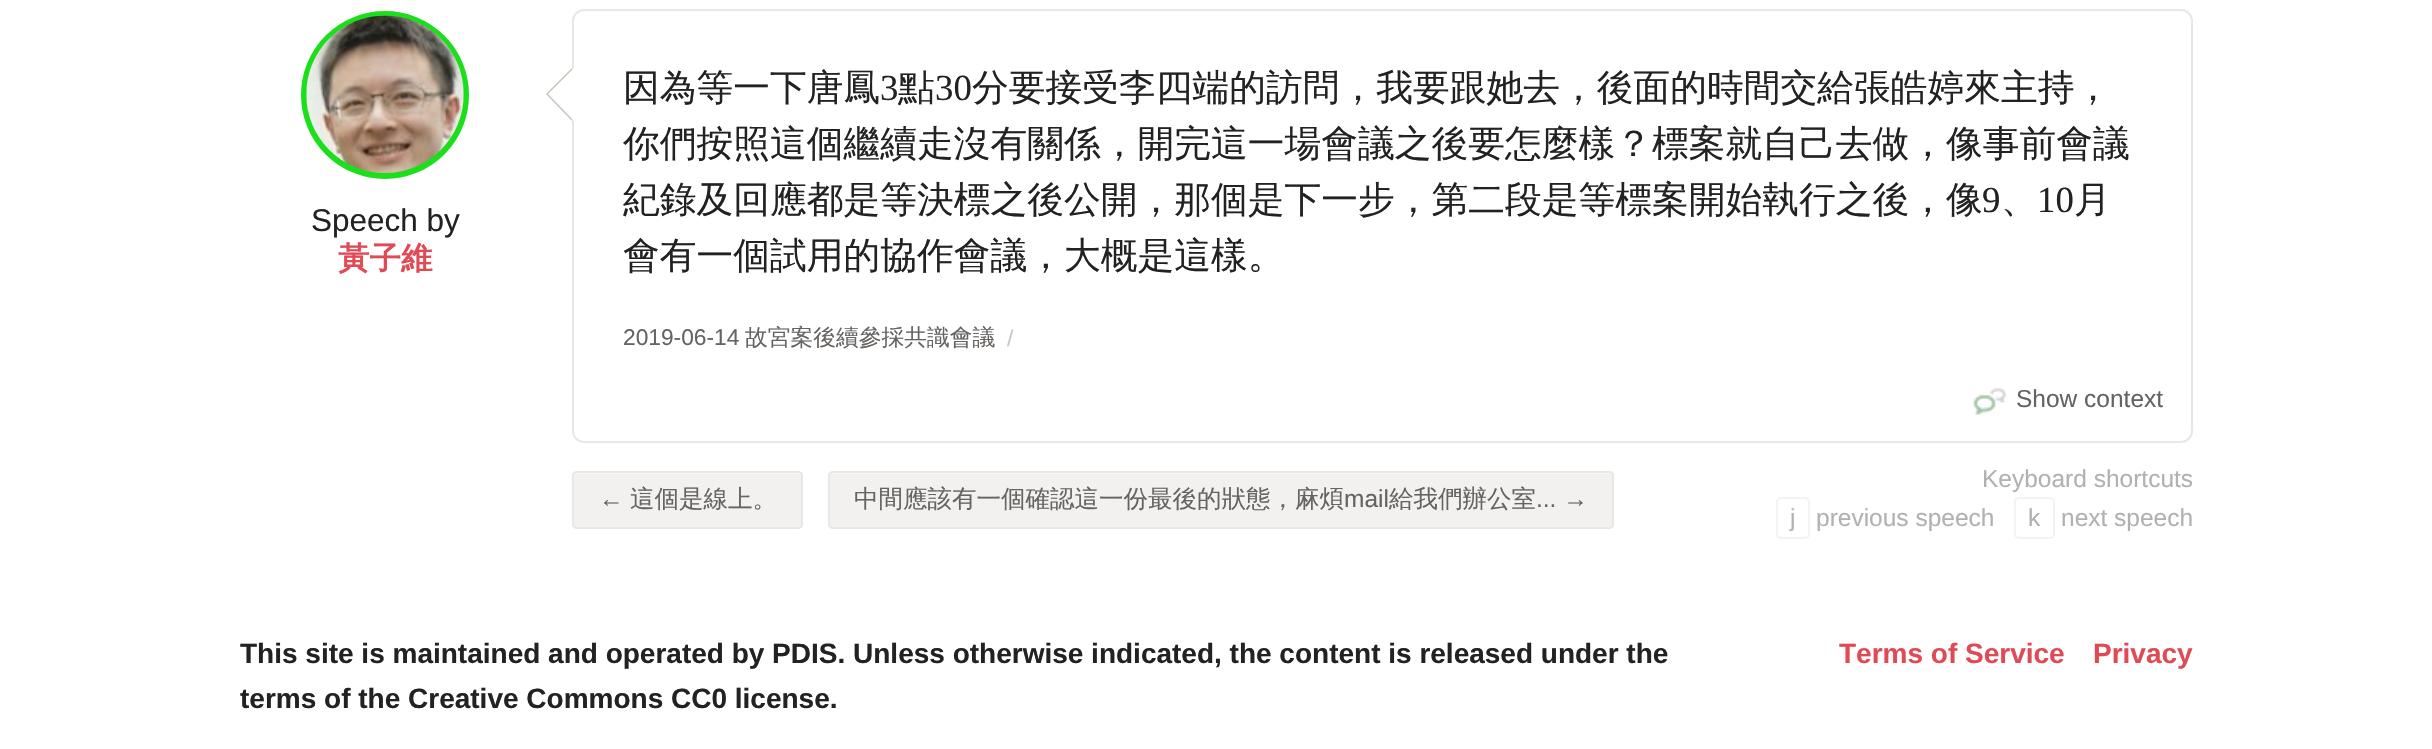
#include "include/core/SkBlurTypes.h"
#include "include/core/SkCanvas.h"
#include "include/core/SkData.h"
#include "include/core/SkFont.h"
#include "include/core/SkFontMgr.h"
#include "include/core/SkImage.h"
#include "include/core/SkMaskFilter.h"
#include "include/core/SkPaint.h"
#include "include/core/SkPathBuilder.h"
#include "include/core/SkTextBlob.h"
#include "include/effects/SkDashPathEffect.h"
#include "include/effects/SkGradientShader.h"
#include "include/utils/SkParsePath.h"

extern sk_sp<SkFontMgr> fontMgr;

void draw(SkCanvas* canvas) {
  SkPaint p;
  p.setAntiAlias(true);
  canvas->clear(SK_ColorWHITE);
  p.setStyle(SkPaint::kStroke_Style);
  p.setStrokeWidth(2);
  p.setColor(SkColorSetRGB(233, 231, 228));
  canvas->drawRoundRect(SkRect::MakeLTRB(573, 10, 2192, 442), 11, 11, p);
  p.setStyle(SkPaint::kFill_Style);
  p.setColor(SkColorSetRGB(27, 223, 26));
  canvas->drawCircle(385, 95, 81.5f, p);
  p.setStyle(SkPaint::kStroke_Style);
  p.setStrokeWidth(5);
  canvas->drawCircle(385, 95, 81.5f, p);
  canvas->drawImageRect(SkImages::DeferredFromEncodedData(SkData::MakeFromFileName("images/1.png")), SkRect::MakeLTRB(306, 15, 464, 173), SkSamplingOptions());
  p.setStyle(SkPaint::kFill_Style);
  p.setColor(SkColorSetRGB(199, 194, 186));
  canvas->drawPath(SkPathBuilder().moveTo(572, 68).lineTo(572, 121).lineTo(546, 94).close().detach(), p);
  p.setColor(SK_ColorWHITE);
  canvas->drawPath(SkPathBuilder().moveTo(574, 68).lineTo(574, 121).lineTo(548, 94).close().detach(), p);
  canvas->drawImageRect(SkImages::DeferredFromEncodedData(SkData::MakeFromFileName("images/2.png")), SkRect::MakeLTRB(1973, 388, 2006, 415), SkSamplingOptions());
  p.setColor(SkColorSetRGB(242, 241, 239));
  canvas->drawRoundRect(SkRect::MakeLTRB(572, 471, 803, 529), 5, 5, p);
  p.setColor(SkColorSetRGB(249, 248, 247));
  canvas->drawPath(SkPathBuilder().moveTo(578, 474).lineTo(798, 474).cubicTo(800, 474, 802, 476, 802, 478).cubicTo(802, 475, 801, 473, 798, 473).lineTo(578, 473).cubicTo(575, 473, 574, 475, 574, 478).cubicTo(574, 476, 576, 474, 578, 474).close().detach(), p);
  p.setStyle(SkPaint::kStroke_Style);
  p.setStrokeWidth(2);
  p.setColor(SkColorSetRGB(233, 231, 228));
  canvas->drawRoundRect(SkRect::MakeLTRB(573, 472, 802, 528), 4, 4, p);
  p.setStyle(SkPaint::kFill_Style);
  p.setColor(SkColorSetRGB(242, 241, 239));
  canvas->drawRoundRect(SkRect::MakeLTRB(828, 471, 1614, 529), 5, 5, p);
  p.setColor(SkColorSetRGB(249, 248, 247));
  canvas->drawPath(SkPathBuilder().moveTo(833, 474).lineTo(1608, 474).cubicTo(1610, 474, 1612, 476, 1612, 478).lineTo(1612, 477).cubicTo(1612, 475, 1610, 473, 1608, 473).lineTo(834, 473).cubicTo(832, 473, 830, 475, 830, 477).lineTo(830, 478).cubicTo(830, 476, 831, 474, 833, 474).close().detach(), p);
  p.setStyle(SkPaint::kStroke_Style);
  p.setColor(SkColorSetRGB(233, 231, 228));
  canvas->drawRoundRect(SkRect::MakeLTRB(829, 472, 1613, 528), 4, 4, p);
  p.setColor(SkColorSetRGB(244, 243, 242));
  canvas->drawRoundRect(SkRect::MakeLTRB(1777, 498, 1809, 538), 4, 4, p);
  canvas->drawRoundRect(SkRect::MakeLTRB(2015, 498, 2054, 538), 4, 4, p);
  SkFont font1(fontMgr->matchFamilyStyle("Liberation Sans", SkFontStyle::Normal()), 31.5f);
  font1.setSubpixel(true);
  p.setStyle(SkPaint::kFill_Style);
  p.setColor(SkColorSetRGB(34, 34, 34));
  canvas->drawString("Speech by", 311, 231, font1, p);
  SkFont font2(fontMgr->matchFamilyStyle("WenQuanYi Zen Hei", SkFontStyle::Bold()), 31.5f);
  font2.setSubpixel(true);
  p.setColor(SkColorSetRGB(225, 74, 85));
  canvas->drawString("黃子維", 338, 269, font2, p);
  SkFont font3(fontMgr->matchFamilyStyle("WenQuanYi Zen Hei", SkFontStyle(500, SkFontStyle::kNormal_Width, SkFontStyle::kUpright_Slant)), 36.75f);
  font3.setSubpixel(true);
  p.setColor(SkColorSetRGB(34, 34, 34));
  canvas->drawString("因為等一下唐鳳", 623, 100, font3, p);
  SkFont font4(fontMgr->matchFamilyStyle("Liberation Serif", SkFontStyle::Normal()), 36.75f);
  font4.setSubpixel(true);
  canvas->drawString("3", 880, 100, font4, p);
  canvas->drawString("點", 898, 100, font3, p);
  canvas->drawString("30", 935, 100, font4, p);
  canvas->drawString("分要接受李四端的訪問，我要跟她去，後面的時間交給張皓婷來主持，", 972, 100, font3, p);
  canvas->drawString("你們按照這個繼續走沒有關係，開完這一場會議之後要怎麼樣？標案就自己去做，像事前會議", 623, 156, font3, p);
  canvas->drawString("紀錄及回應都是等決標之後公開，那個是下一步，第二段是等標案開始執行之後，像", 623, 212, font3, p);
  canvas->drawString("9", 1982, 212, font4, p);
  canvas->drawString("、", 2001, 212, font3, p);
  canvas->drawString("10", 2037, 212, font4, p);
  canvas->drawString("月", 2074, 212, font3, p);
  canvas->drawString("會有一個試用的協作會議，大概是這樣。", 623, 268, font3, p);
  SkFont font5(fontMgr->matchFamilyStyle("Liberation Sans", SkFontStyle::Normal()), 22.75f);
  font5.setSubpixel(true);
  p.setColor(SkColorSetRGB(102, 99, 97));
  canvas->drawString("2019-06-14", 623, 345, font5, p);
  SkFont font6(fontMgr->matchFamilyStyle("WenQuanYi Zen Hei", SkFontStyle(500, SkFontStyle::kNormal_Width, SkFontStyle::kUpright_Slant)), 22.75f);
  font6.setSubpixel(true);
  canvas->drawString("故宮案後續參採共識會議", 745, 345, font6, p);
  p.setColor(SkColorSetRGB(204, 199, 195));
  canvas->drawString("/", 1007, 346, font5, p);
  SkFont font7(fontMgr->matchFamilyStyle("Liberation Sans", SkFontStyle::Normal()), 24.5f);
  font7.setSubpixel(true);
  p.setColor(SkColorSetRGB(102, 99, 97));
  canvas->drawString("Show context", 2016, 407, font7, p);
  canvas->drawString("←", 599, 507, font7, p);
  SkFont font8(fontMgr->matchFamilyStyle("WenQuanYi Zen Hei", SkFontStyle(500, SkFontStyle::kNormal_Width, SkFontStyle::kUpright_Slant)), 24.5f);
  font8.setSubpixel(true);
  canvas->drawString("這個是線上。", 630, 507, font8, p);
  canvas->drawString("中間應該有一個確認這一份最後的狀態，麻煩", 854, 507, font8, p);
  canvas->drawString("mail", 1344, 507, font7, p);
  canvas->drawString("給我們辦公室", 1389, 507, font8, p);
  canvas->drawString("... →", 1536, 507, font7, p);
  p.setColor(SkColorSetRGB(179, 177, 176));
  canvas->drawString("Keyboard shortcuts", 1982, 487, font7, p);
  canvas->drawString("j", 1790, 526, font7, p);
  canvas->drawString("previous speech", 1816, 526, font7, p);
  canvas->drawString("k", 2028, 526, font7, p);
  canvas->drawString("next speech", 2061, 526, font7, p);
  SkFont font9(fontMgr->matchFamilyStyle("Liberation Sans", SkFontStyle::Bold()), 28);
  font9.setSubpixel(true);
  p.setColor(SkColorSetRGB(34, 34, 34));
  canvas->drawString("This site is maintained and operated by PDIS. Unless otherwise indicated, the content is released under the", 240, 663, font9, p);
  canvas->drawString("terms of the Creative Commons CC0 license.", 240, 708, font9, p);
  p.setColor(SkColorSetRGB(225, 74, 85));
  canvas->drawString("Terms of Service", 1839, 663, font9, p);
  canvas->drawString("Privacy", 2093, 663, font9, p);
}
